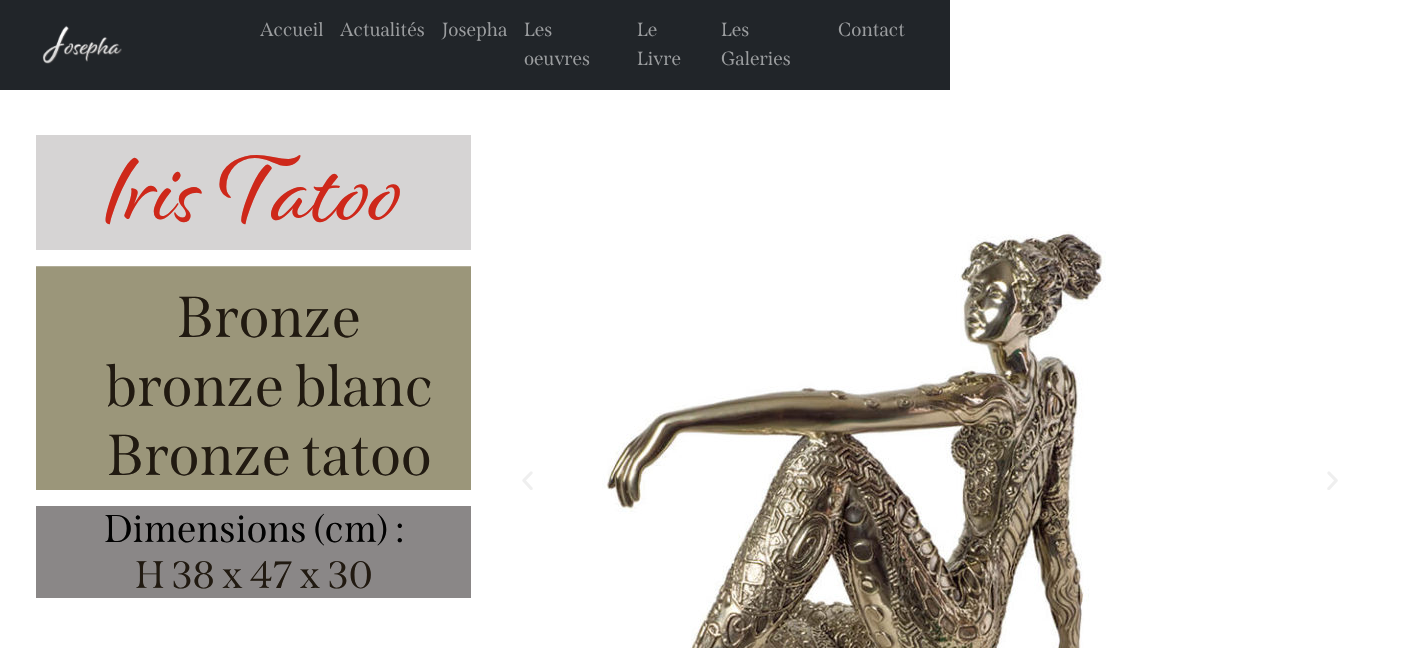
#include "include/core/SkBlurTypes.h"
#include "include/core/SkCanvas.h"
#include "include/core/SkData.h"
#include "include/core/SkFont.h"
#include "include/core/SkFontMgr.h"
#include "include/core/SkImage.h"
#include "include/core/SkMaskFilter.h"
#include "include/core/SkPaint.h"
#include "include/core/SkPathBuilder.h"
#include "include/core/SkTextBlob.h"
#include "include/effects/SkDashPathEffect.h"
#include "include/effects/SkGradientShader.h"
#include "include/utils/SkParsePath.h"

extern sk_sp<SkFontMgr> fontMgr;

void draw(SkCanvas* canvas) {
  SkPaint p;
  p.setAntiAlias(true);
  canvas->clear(SK_ColorWHITE);
  p.setColor(SkColorSetRGB(33, 37, 41));
  canvas->drawRect(SkRect::MakeLTRB(0, 0, 950, 90), p);
  canvas->drawImageRect(SkImages::DeferredFromEncodedData(SkData::MakeFromFileName("images/1.png")), SkRect::MakeLTRB(42, 25, 122, 64), SkSamplingOptions());
  p.setColor(SkColorSetRGB(214, 212, 212));
  canvas->drawRect(SkRect::MakeLTRB(36, 135, 471, 250), p);
  p.setColor(SkColorSetRGB(155, 150, 122));
  canvas->drawRect(SkRect::MakeLTRB(36, 267, 471, 490), p);
  p.setColor(SkColorSetRGB(177, 173, 152));
  canvas->drawRect(SkRect::MakeLTRB(36, 266, 471, 267), p);
  p.setColor(SkColorSetRGB(138, 135, 135));
  canvas->drawRect(SkRect::MakeLTRB(36, 506, 471, 598), p);
  canvas->drawImageRect(SkImages::DeferredFromEncodedData(SkData::MakeFromFileName("images/2.png")), SkRect::MakeLTRB(522, 471, 533, 490), SkSamplingOptions());
  canvas->drawImageRect(SkImages::DeferredFromEncodedData(SkData::MakeFromFileName("images/3.png")), SkRect::MakeLTRB(602, 231, 1106, 648), SkSamplingOptions());
  canvas->drawImageRect(SkImages::DeferredFromEncodedData(SkData::MakeFromFileName("images/4.png")), SkRect::MakeLTRB(1327, 471, 1338, 490), SkSamplingOptions());
  SkFont font1(fontMgr->matchFamilyStyle("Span", SkFontStyle::Normal()), 19);
  font1.setSubpixel(true);
  p.setColor(SkColorSetRGB(155, 157, 159));
  canvas->drawString("Accueil", 260, 36, font1, p);
  canvas->drawString("Actualités", 340, 36, font1, p);
  canvas->drawString("Josepha", 442, 36, font1, p);
  canvas->drawString("Les", 524, 36, font1, p);
  canvas->drawString("oeuvres", 524, 65, font1, p);
  canvas->drawString("Le", 637, 36, font1, p);
  canvas->drawString("Livre", 637, 65, font1, p);
  canvas->drawString("Les", 721, 36, font1, p);
  canvas->drawString("Galeries", 721, 65, font1, p);
  canvas->drawString("Contact", 838, 36, font1, p);
  SkFont font2(fontMgr->matchFamilyStyle("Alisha", SkFontStyle::Normal()), 96);
  font2.setSubpixel(true);
  p.setColor(SkColorSetRGB(206, 40, 26));
  canvas->drawString("Iris Tatoo", 104, 221, font2, p);
  SkFont font3(fontMgr->matchFamilyStyle("Span", SkFontStyle::Normal()), 57.5f);
  font3.setSubpixel(true);
  p.setColor(SkColorSetRGB(33, 26, 17));
  canvas->drawString("Bronze", 177, 337, font3, p);
  canvas->drawString("bronze blanc", 105, 406, font3, p);
  canvas->drawString("Bronze tatoo", 107, 475, font3, p);
  SkFont font4(fontMgr->matchFamilyStyle("Span", SkFontStyle::Normal()), 38.5f);
  font4.setSubpixel(true);
  p.setColor(SkColorSetRGB(1, 1, 1));
  canvas->drawString("Dimensions (cm) :", 104, 542, font4, p);
  p.setColor(SkColorSetRGB(33, 26, 17));
  canvas->drawString("H 38 x 47 x 30", 135, 588, font4, p);
}
